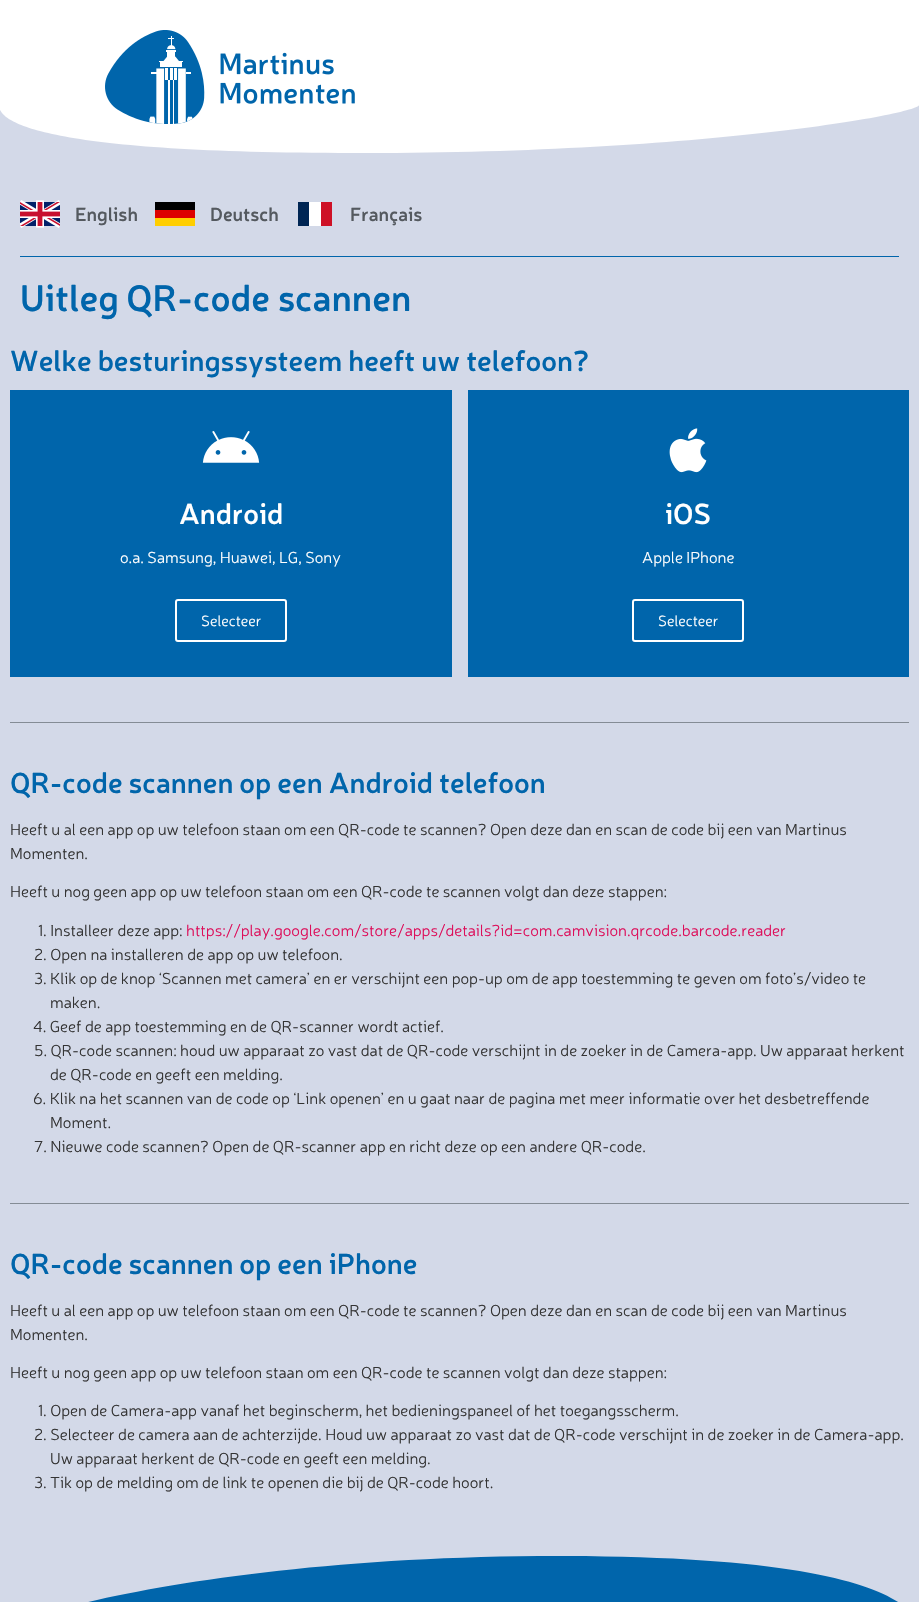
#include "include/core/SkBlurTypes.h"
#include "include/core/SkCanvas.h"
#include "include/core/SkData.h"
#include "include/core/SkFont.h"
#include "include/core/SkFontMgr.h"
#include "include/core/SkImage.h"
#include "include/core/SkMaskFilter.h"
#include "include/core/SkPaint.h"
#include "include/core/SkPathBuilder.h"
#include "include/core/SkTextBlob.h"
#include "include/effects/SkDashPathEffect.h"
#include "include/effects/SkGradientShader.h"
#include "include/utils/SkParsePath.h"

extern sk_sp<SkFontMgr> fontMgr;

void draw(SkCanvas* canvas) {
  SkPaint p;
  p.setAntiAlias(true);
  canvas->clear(SK_ColorWHITE);
  canvas->drawImageRect(SkImages::DeferredFromEncodedData(SkData::MakeFromFileName("images/1.png")), SkRect::MakeLTRB(105, 30, 355, 124), SkSamplingOptions());
  p.setColor(SkColorSetRGB(211, 217, 232));
  canvas->drawPath(SkPathBuilder().moveTo(353, 153).cubicTo(698, 154, 919, 114, 919, 105).lineTo(919, 155).lineTo(-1, 155).lineTo(-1, 105).cubicTo(-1, 115, 8, 153, 353, 153).close().detach(), p);
  canvas->drawRect(SkRect::MakeLTRB(0, 155, 919, 1554), p);
  canvas->drawImageRect(SkImages::DeferredFromEncodedData(SkData::MakeFromFileName("images/2.png")), SkRect::MakeLTRB(20, 200, 60, 228), SkSamplingOptions());
  p.setColor(SK_ColorBLACK);
  canvas->drawRect(SkRect::MakeLTRB(155, 202, 195, 210), p);
  p.setColor(SkColorSetRGB(221, 0, 0));
  canvas->drawRect(SkRect::MakeLTRB(155, 210, 195, 218), p);
  p.setColor(SkColorSetRGB(255, 206, 0));
  canvas->drawRect(SkRect::MakeLTRB(155, 218, 195, 226), p);
  p.setColor(SkColorSetRGB(206, 17, 38));
  canvas->drawRect(SkRect::MakeLTRB(321, 202, 332, 226), p);
  p.setColor(SK_ColorWHITE);
  canvas->drawRect(SkRect::MakeLTRB(309, 202, 321, 226), p);
  p.setColor(SkColorSetRGB(0, 38, 84));
  canvas->drawRect(SkRect::MakeLTRB(298, 202, 309, 226), p);
  p.setColor(SkColorSetRGB(0, 101, 171));
  canvas->drawRect(SkRect::MakeLTRB(20, 256, 899, 257), p);
  canvas->drawRect(SkRect::MakeLTRB(10, 390, 452, 677), p);
  canvas->drawImageRect(SkImages::DeferredFromEncodedData(SkData::MakeFromFileName("images/3.png")), SkRect::MakeLTRB(202, 431, 260, 463), SkSamplingOptions());
  p.setStyle(SkPaint::kStroke_Style);
  p.setStrokeWidth(2);
  p.setColor(SK_ColorWHITE);
  canvas->drawRoundRect(SkRect::MakeLTRB(176, 600, 286, 641), 2, 2, p);
  p.setStyle(SkPaint::kFill_Style);
  p.setColor(SkColorSetRGB(0, 101, 171));
  canvas->drawRect(SkRect::MakeLTRB(468, 390, 909, 677), p);
  canvas->drawImageRect(SkImages::DeferredFromEncodedData(SkData::MakeFromFileName("images/4.png")), SkRect::MakeLTRB(669, 428, 707, 473), SkSamplingOptions());
  p.setStyle(SkPaint::kStroke_Style);
  p.setColor(SK_ColorWHITE);
  canvas->drawRoundRect(SkRect::MakeLTRB(633, 600, 743, 641), 2, 2, p);
  p.setStyle(SkPaint::kFill_Style);
  p.setColor(SkColorSetRGB(132, 140, 149));
  canvas->drawRect(SkRect::MakeLTRB(10, 722, 909, 723), p);
  canvas->drawRect(SkRect::MakeLTRB(10, 1203, 909, 1204), p);
  p.setColor(SkColorSetRGB(0, 101, 171));
  canvas->drawRect(SkRect::MakeLTRB(88, 1556, 898, 1602), p);
  p.setColor(SkColorSetRGB(211, 217, 232));
  canvas->drawPath(SkPathBuilder().moveTo(566, 1556).cubicTo(221, 1555, 0, 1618, 0, 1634).lineTo(0, 1554).lineTo(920, 1554).lineTo(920, 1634).cubicTo(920, 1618, 911, 1557, 566, 1556).close().detach(), p);
  SkFont font1(fontMgr->matchFamilyStyle("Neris", SkFontStyle(600, SkFontStyle::kNormal_Width, SkFontStyle::kUpright_Slant)), 19);
  font1.setSubpixel(true);
  p.setColor(SkColorSetRGB(84, 89, 95));
  canvas->drawString("English", 75, 221, font1, p);
  canvas->drawString("Deutsch", 210, 221, font1, p);
  canvas->drawString("Français", 350, 221, font1, p);
  SkFont font2(fontMgr->matchFamilyStyle("Neris", SkFontStyle(600, SkFontStyle::kNormal_Width, SkFontStyle::kUpright_Slant)), 36.75f);
  font2.setSubpixel(true);
  p.setColor(SkColorSetRGB(0, 101, 171));
  canvas->drawString("Uitleg QR-code scannen", 20, 311, font2, p);
  SkFont font3(fontMgr->matchFamilyStyle("Neris", SkFontStyle(600, SkFontStyle::kNormal_Width, SkFontStyle::kUpright_Slant)), 28.8f);
  font3.setSubpixel(true);
  canvas->drawString("Welke besturingssysteem heeft uw telefoon?", 10, 371, font3, p);
  p.setColor(SK_ColorWHITE);
  canvas->drawString("Android", 179, 524, font3, p);
  SkFont font4(fontMgr->matchFamilyStyle("Neris", SkFontStyle(300, SkFontStyle::kNormal_Width, SkFontStyle::kUpright_Slant)), 16);
  font4.setSubpixel(true);
  canvas->drawString("o.a. Samsung, Huawei, LG, Sony", 120, 563, font4, p);
  SkFont font5(fontMgr->matchFamilyStyle("Neris", SkFontStyle(300, SkFontStyle::kNormal_Width, SkFontStyle::kUpright_Slant)), 15);
  font5.setSubpixel(true);
  canvas->drawString("Selecteer", 201, 626, font5, p);
  canvas->drawString("iOS", 665, 524, font3, p);
  canvas->drawString("Apple IPhone", 642, 563, font4, p);
  canvas->drawString("Selecteer", 658, 626, font5, p);
  p.setColor(SkColorSetRGB(0, 101, 171));
  canvas->drawString("QR-code scannen op een Android telefoon", 10, 793, font3, p);
  p.setColor(SkColorSetRGB(51, 51, 51));
  canvas->drawString("Heeft u al een app op uw telefoon staan om een QR-code te scannen? Open deze dan en scan de code bij een van Martinus", 10, 835, font4, p);
  canvas->drawString("Momenten.", 10, 859, font4, p);
  canvas->drawString("Heeft u nog geen app op uw telefoon staan om een QR-code te scannen volgt dan deze stappen:", 10, 897, font4, p);
  canvas->drawString("1. Installeer deze app:", 38, 936, font4, p);
  p.setColor(SkColorSetRGB(221, 14, 90));
  canvas->drawString("https://play.google.com/store/apps/details?id=com.camvision.qrcode.barcode.reader", 186, 936, font4, p);
  p.setColor(SkColorSetRGB(51, 51, 51));
  canvas->drawString("2. Open na installeren de app op uw telefoon.", 34, 960, font4, p);
  canvas->drawString("3. Klik op de knop ‘Scannen met camera’ en er verschijnt een pop-up om de app toestemming te geven om foto’s/video te", 34, 984, font4, p);
  canvas->drawString("maken.", 50, 1008, font4, p);
  canvas->drawString("4. Geef de app toestemming en de QR-scanner wordt actief.", 33, 1032, font4, p);
  canvas->drawString("5. QR-code scannen: houd uw apparaat zo vast dat de QR-code verschijnt in de zoeker in de Camera-app. Uw apparaat herkent", 34, 1056, font4, p);
  canvas->drawString("de QR-code en geeft een melding.", 50, 1080, font4, p);
  canvas->drawString("6. Klik na het scannen van de code op ‘Link openen’ en u gaat naar de pagina met meer informatie over het desbetreffende", 33, 1104, font4, p);
  canvas->drawString("Moment.", 50, 1128, font4, p);
  canvas->drawString("7. Nieuwe code scannen? Open de QR-scanner app en richt deze op een andere QR-code.", 34, 1152, font4, p);
  p.setColor(SkColorSetRGB(0, 101, 171));
  canvas->drawString("QR-code scannen op een iPhone", 10, 1274, font3, p);
  p.setColor(SkColorSetRGB(51, 51, 51));
  canvas->drawString("Heeft u al een app op uw telefoon staan om een QR-code te scannen? Open deze dan en scan de code bij een van Martinus", 10, 1316, font4, p);
  canvas->drawString("Momenten.", 10, 1340, font4, p);
  canvas->drawString("Heeft u nog geen app op uw telefoon staan om een QR-code te scannen volgt dan deze stappen:", 10, 1378, font4, p);
  canvas->drawString("1. Open de Camera-app vanaf het beginscherm, het bedieningspaneel of het toegangsscherm.", 38, 1416, font4, p);
  canvas->drawString("2. Selecteer de camera aan de achterzijde. Houd uw apparaat zo vast dat de QR-code verschijnt in de zoeker in de Camera-app.", 34, 1440, font4, p);
  canvas->drawString("Uw apparaat herkent de QR-code en geeft een melding.", 50, 1464, font4, p);
  canvas->drawString("3. Tik op de melding om de link te openen die bij de QR-code hoort.", 34, 1488, font4, p);
}
